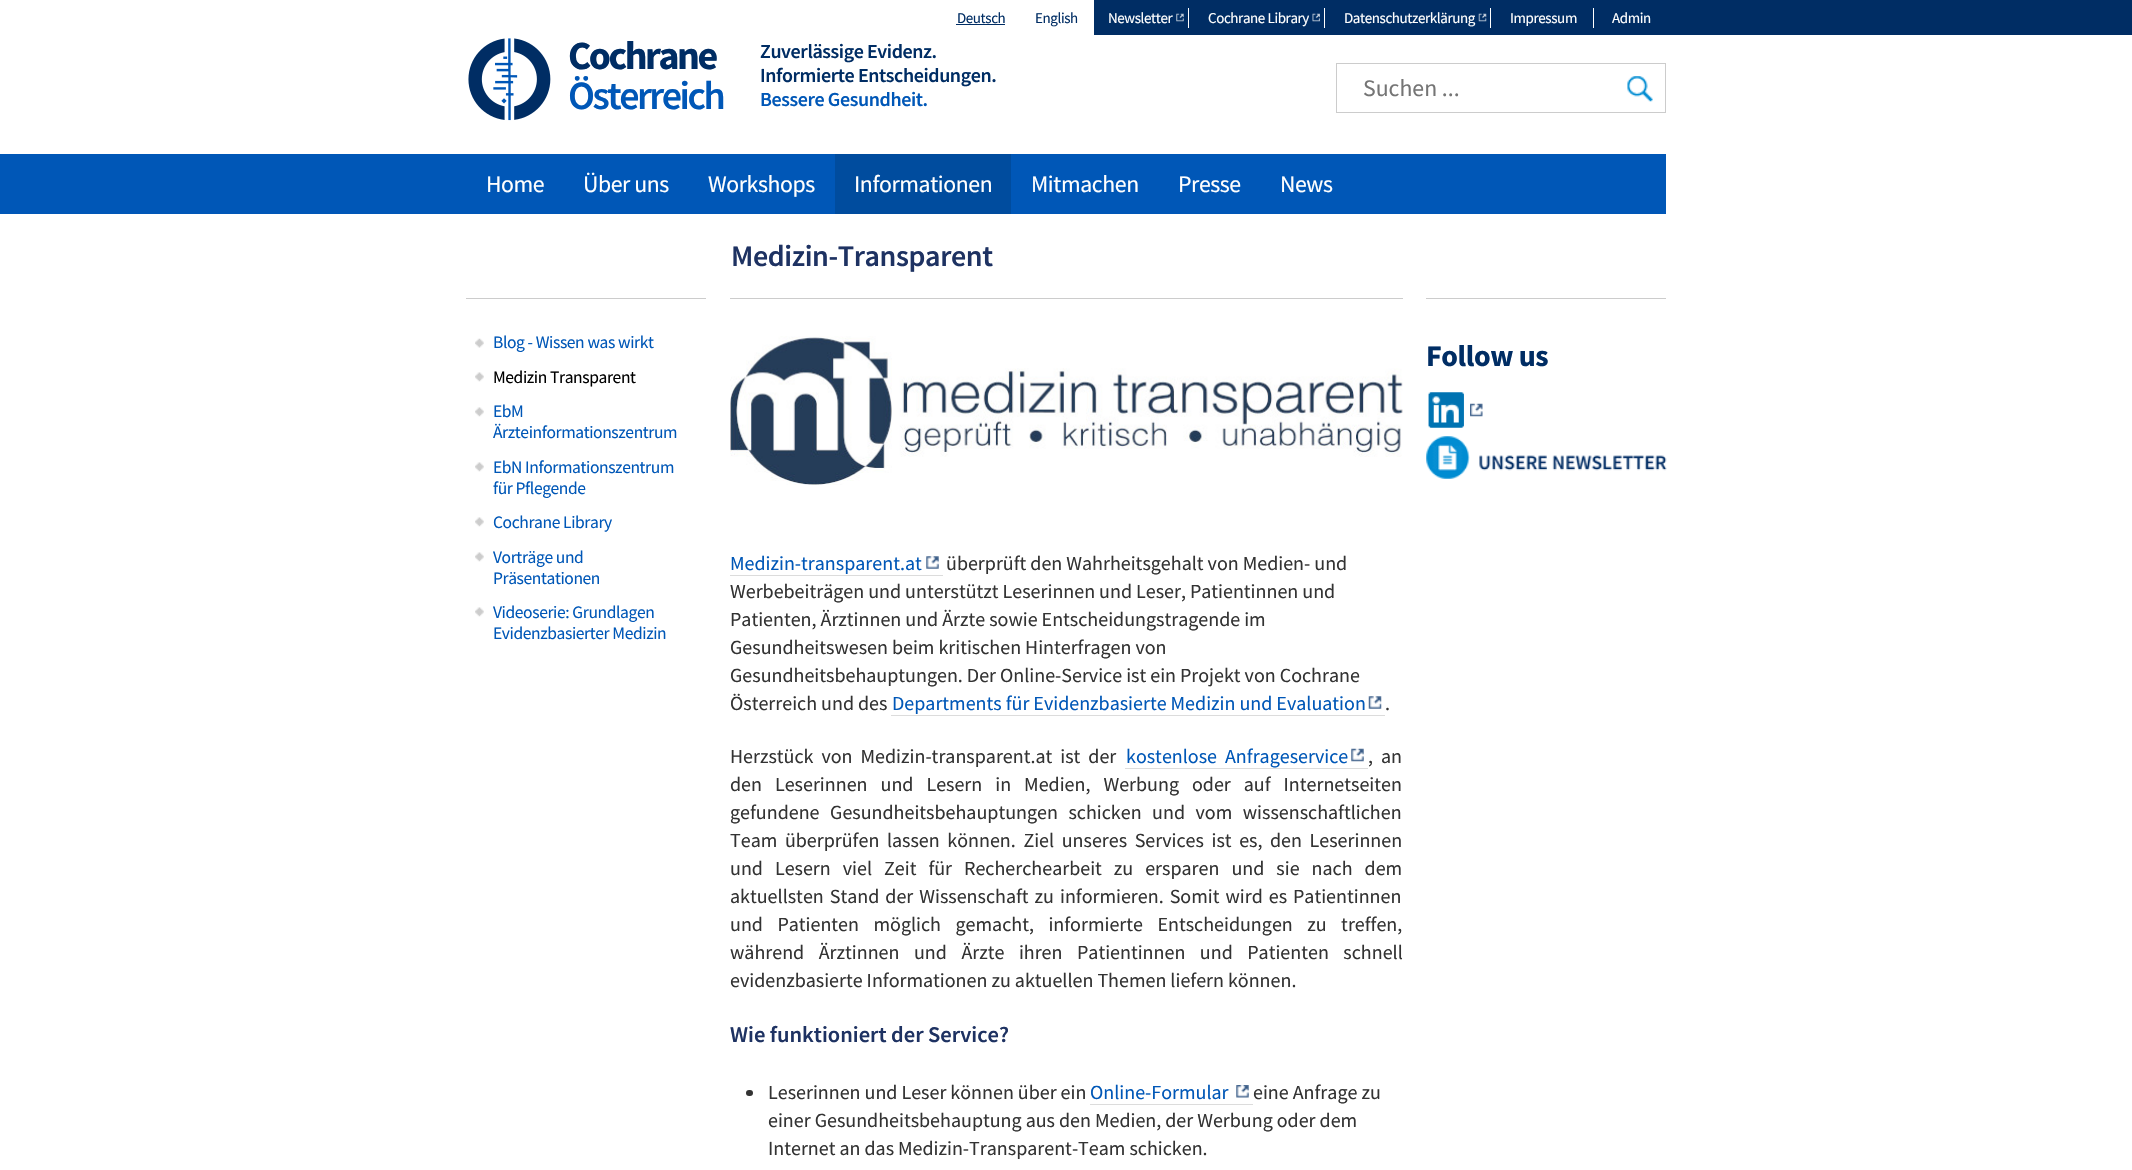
#include "include/core/SkBlurTypes.h"
#include "include/core/SkCanvas.h"
#include "include/core/SkData.h"
#include "include/core/SkFont.h"
#include "include/core/SkFontMgr.h"
#include "include/core/SkImage.h"
#include "include/core/SkMaskFilter.h"
#include "include/core/SkPaint.h"
#include "include/core/SkPathBuilder.h"
#include "include/core/SkTextBlob.h"
#include "include/effects/SkDashPathEffect.h"
#include "include/effects/SkGradientShader.h"
#include "include/utils/SkParsePath.h"

extern sk_sp<SkFontMgr> fontMgr;

void draw(SkCanvas* canvas) {
  SkPaint p;
  p.setAntiAlias(true);
  auto spacedText = [&](const char* s, float x, float y, const SkFont& font, const SkPaint& ink, float letter, float word) {
    std::vector<SkGlyphID> glyphs(font.countText(s, strlen(s), SkTextEncoding::kUTF8));
    std::vector<float> xs(glyphs.size());
    font.textToGlyphs(s, strlen(s), SkTextEncoding::kUTF8, glyphs);
    font.getXPos(glyphs, xs, x);
    float extra = 0;
    for (size_t i = 0; i < glyphs.size(); i++) {
      xs[i] += extra;
      extra += letter + word * (glyphs[i] == font.unicharToGlyph(' '));
    }
    canvas->drawTextBlob(SkTextBlob::MakeFromPosHGlyphs(glyphs, xs, y, font), 0, 0, ink);
  };
  canvas->clear(SK_ColorWHITE);
  p.setColor(SkColorSetRGB(0, 45, 100));
  canvas->drawRect(SkRect::MakeLTRB(1094, 0, 2132, 35), p);
  canvas->drawRect(SkRect::MakeLTRB(956, 24, 1005, 25), p);
  canvas->drawImageRect(SkImages::DeferredFromEncodedData(SkData::MakeFromFileName("images/1.png")), SkRect::MakeLTRB(1176, 13, 1184, 22), SkSamplingOptions());
  p.setColor(SK_ColorWHITE);
  canvas->drawRect(SkRect::MakeLTRB(1188, 8, 1189, 28), p);
  canvas->drawImageRect(SkImages::DeferredFromEncodedData(SkData::MakeFromFileName("images/2.png")), SkRect::MakeLTRB(1312, 13, 1320, 22), SkSamplingOptions());
  canvas->drawRect(SkRect::MakeLTRB(1324, 8, 1325, 28), p);
  canvas->drawImageRect(SkImages::DeferredFromEncodedData(SkData::MakeFromFileName("images/3.png")), SkRect::MakeLTRB(1478, 13, 1487, 22), SkSamplingOptions());
  canvas->drawRect(SkRect::MakeLTRB(1490, 8, 1491, 28), p);
  canvas->drawRect(SkRect::MakeLTRB(1593, 8, 1594, 28), p);
  canvas->drawImageRect(SkImages::DeferredFromEncodedData(SkData::MakeFromFileName("images/4.png")), SkRect::MakeLTRB(468, 38, 551, 121), SkSamplingOptions());
  p.setStyle(SkPaint::kStroke_Style);
  p.setStrokeWidth(1);
  p.setColor(SkColorSetRGB(204, 204, 204));
  canvas->drawRect(SkRect::MakeLTRB(1336.5f, 63.5f, 1665.5f, 112.5f), p);
  canvas->drawImageRect(SkImages::DeferredFromEncodedData(SkData::MakeFromFileName("images/5.png")), SkRect::MakeLTRB(1627, 76, 1653, 102), SkSamplingOptions());
  p.setStyle(SkPaint::kFill_Style);
  p.setColor(SkColorSetRGB(0, 87, 183));
  canvas->drawRect(SkRect::MakeLTRB(0, 154, 1666, 214), p);
  p.setColor(SkColorSetRGB(0, 76, 158));
  canvas->drawRect(SkRect::MakeLTRB(835, 154, 1011, 214), p);
  p.setColor(SkColorSetRGB(204, 204, 204));
  canvas->drawRect(SkRect::MakeLTRB(466, 298, 706, 299), p);
  canvas->drawImageRect(SkImages::DeferredFromEncodedData(SkData::MakeFromFileName("images/6.png")), SkRect::MakeLTRB(475, 338, 484, 348), SkSamplingOptions());
  canvas->drawImageRect(SkImages::DeferredFromEncodedData(SkData::MakeFromFileName("images/7.png")), SkRect::MakeLTRB(475, 372, 484, 382), SkSamplingOptions());
  canvas->drawImageRect(SkImages::DeferredFromEncodedData(SkData::MakeFromFileName("images/7.png")), SkRect::MakeLTRB(475, 407, 484, 417), SkSamplingOptions());
  canvas->drawImageRect(SkImages::DeferredFromEncodedData(SkData::MakeFromFileName("images/7.png")), SkRect::MakeLTRB(475, 462, 484, 472), SkSamplingOptions());
  canvas->drawImageRect(SkImages::DeferredFromEncodedData(SkData::MakeFromFileName("images/7.png")), SkRect::MakeLTRB(475, 517, 484, 527), SkSamplingOptions());
  canvas->drawImageRect(SkImages::DeferredFromEncodedData(SkData::MakeFromFileName("images/7.png")), SkRect::MakeLTRB(475, 552, 484, 562), SkSamplingOptions());
  canvas->drawImageRect(SkImages::DeferredFromEncodedData(SkData::MakeFromFileName("images/7.png")), SkRect::MakeLTRB(475, 607, 484, 617), SkSamplingOptions());
  canvas->drawRect(SkRect::MakeLTRB(1426, 298, 1666, 299), p);
  canvas->drawImageRect(SkImages::DeferredFromEncodedData(SkData::MakeFromFileName("images/8.png")), SkRect::MakeLTRB(1428, 392, 1483, 428), SkSamplingOptions());
  canvas->drawImageRect(SkImages::DeferredFromEncodedData(SkData::MakeFromFileName("images/9.png")), SkRect::MakeLTRB(1428, 392, 1464, 428), SkSamplingOptions());
  canvas->drawImageRect(SkImages::DeferredFromEncodedData(SkData::MakeFromFileName("images/10.png")), SkRect::MakeLTRB(1426, 436, 1667, 479), SkSamplingOptions());
  canvas->drawRect(SkRect::MakeLTRB(730, 298, 1403, 299), p);
  canvas->drawImageRect(SkImages::DeferredFromEncodedData(SkData::MakeFromFileName("images/11.png")), SkRect::MakeLTRB(730, 336, 1403, 485), SkSamplingOptions());
  p.setColor(SkColorSetRGB(220, 220, 220));
  canvas->drawRect(SkRect::MakeLTRB(730, 575, 943, 576), p);
  canvas->drawImageRect(SkImages::DeferredFromEncodedData(SkData::MakeFromFileName("images/12.png")), SkRect::MakeLTRB(926, 556, 939, 569), SkSamplingOptions());
  canvas->drawRect(SkRect::MakeLTRB(891, 715, 1385, 716), p);
  canvas->drawImageRect(SkImages::DeferredFromEncodedData(SkData::MakeFromFileName("images/13.png")), SkRect::MakeLTRB(1368, 696, 1382, 709), SkSamplingOptions());
  canvas->drawRect(SkRect::MakeLTRB(1125, 768, 1368, 769), p);
  canvas->drawImageRect(SkImages::DeferredFromEncodedData(SkData::MakeFromFileName("images/14.png")), SkRect::MakeLTRB(1351, 748, 1364, 762), SkSamplingOptions());
  p.setColor(SkColorSetRGB(51, 51, 51));
  canvas->drawRoundRect(SkRect::MakeLTRB(746, 1090, 753, 1096), 3, 3, p);
  p.setColor(SkColorSetRGB(220, 220, 220));
  canvas->drawRect(SkRect::MakeLTRB(1090, 1104, 1253, 1105), p);
  canvas->drawImageRect(SkImages::DeferredFromEncodedData(SkData::MakeFromFileName("images/15.png")), SkRect::MakeLTRB(1236, 1085, 1249, 1098), SkSamplingOptions());
  SkFont font1(fontMgr->matchFamilyStyle("Source Sans Pro", SkFontStyle::Normal()), 15);
  font1.setSubpixel(true);
  p.setColor(SkColorSetRGB(0, 45, 100));
  spacedText("Deutsch", 957, 23, font1, p, -0.4f, 0);
  spacedText("English", 1035, 23, font1, p, -0.4f, 0);
  p.setColor(SK_ColorWHITE);
  spacedText("Newsletter", 1108, 23, font1, p, -0.4f, 0);
  spacedText("Cochrane Library", 1208, 23, font1, p, -0.4f, 0);
  spacedText("Datenschutzerklärung", 1344, 23, font1, p, -0.4f, 0);
  spacedText("Impressum", 1510, 23, font1, p, -0.4f, 0);
  spacedText("Admin", 1612, 23, font1, p, -0.4f, 0);
  SkFont font2(fontMgr->matchFamilyStyle("Source Sans Pro", SkFontStyle::Bold()), 40);
  font2.setSubpixel(true);
  p.setColor(SkColorSetRGB(0, 45, 100));
  spacedText("Cochrane", 568, 69, font2, p, -2.5f, 0);
  SkFont font3(fontMgr->matchFamilyStyle("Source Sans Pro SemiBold", SkFontStyle(600, SkFontStyle::kNormal_Width, SkFontStyle::kUpright_Slant)), 40);
  font3.setSubpixel(true);
  p.setColor(SkColorSetRGB(0, 87, 183));
  spacedText("Österreich", 568, 109, font3, p, -2.5f, 0);
  SkFont font4(fontMgr->matchFamilyStyle("Source Sans Pro SemiBold", SkFontStyle(600, SkFontStyle::kNormal_Width, SkFontStyle::kUpright_Slant)), 20);
  font4.setSubpixel(true);
  p.setColor(SkColorSetRGB(0, 45, 100));
  spacedText("Zuverlässige Evidenz.", 760, 58, font4, p, -0.4f, 0);
  spacedText("Informierte Entscheidungen.", 760, 82, font4, p, -0.4f, 0);
  p.setColor(SkColorSetRGB(0, 87, 183));
  spacedText("Bessere Gesundheit.", 760, 106, font4, p, -0.4f, 0);
  SkFont font5(fontMgr->matchFamilyStyle("Source Sans Pro", SkFontStyle::Normal()), 23.75f);
  font5.setSubpixel(true);
  p.setColor(SkColorSetRGB(117, 117, 117));
  canvas->drawString("Suchen ...", 1363, 96, font5, p);
  p.setColor(SK_ColorWHITE);
  spacedText("Home", 486, 192, font5, p, -0.4f, 0);
  spacedText("Über uns", 583, 192, font5, p, -0.4f, 0);
  spacedText("Workshops", 708, 192, font5, p, -0.4f, 0);
  spacedText("Informationen", 854, 192, font5, p, -0.4f, 0);
  spacedText("Mitmachen", 1031, 192, font5, p, -0.4f, 0);
  spacedText("Presse", 1178, 192, font5, p, -0.4f, 0);
  spacedText("News", 1280, 192, font5, p, -0.4f, 0);
  SkFont font6(fontMgr->matchFamilyStyle("Source Sans Pro SemiBold", SkFontStyle(600, SkFontStyle::kNormal_Width, SkFontStyle::kUpright_Slant)), 30);
  font6.setSubpixel(true);
  p.setColor(SkColorSetRGB(30, 50, 98));
  spacedText("Medizin-Transparent", 731, 266, font6, p, -0.4f, 0);
  SkFont font7(fontMgr->matchFamilyStyle("Source Sans Pro", SkFontStyle::Normal()), 17.5f);
  font7.setSubpixel(true);
  p.setColor(SkColorSetRGB(0, 87, 183));
  spacedText("Blog - Wissen was wirkt", 493, 348, font7, p, -0.4f, 0);
  p.setColor(SK_ColorBLACK);
  spacedText("Medizin Transparent", 493, 383, font7, p, -0.4f, 0);
  p.setColor(SkColorSetRGB(0, 87, 183));
  spacedText("EbM", 493, 417, font7, p, -0.4f, 0);
  spacedText("Ärzteinformationszentrum", 493, 438, font7, p, -0.4f, 0);
  spacedText("EbN Informationszentrum", 493, 473, font7, p, -0.4f, 0);
  spacedText("für Pflegende", 493, 494, font7, p, -0.4f, 0);
  spacedText("Cochrane Library", 493, 528, font7, p, -0.4f, 0);
  spacedText("Vorträge und", 493, 563, font7, p, -0.4f, 0);
  spacedText("Präsentationen", 493, 584, font7, p, -0.4f, 0);
  spacedText("Videoserie: Grundlagen", 493, 618, font7, p, -0.4f, 0);
  spacedText("Evidenzbasierter Medizin", 493, 639, font7, p, -0.4f, 0);
  SkFont font8(fontMgr->matchFamilyStyle("Source Sans Pro", SkFontStyle::Bold()), 30);
  font8.setSubpixel(true);
  p.setColor(SkColorSetRGB(0, 45, 100));
  spacedText("Follow us", 1426, 366, font8, p, -0.4f, 0);
  SkFont font9(fontMgr->matchFamilyStyle("Source Sans Pro", SkFontStyle::Normal()), 20);
  font9.setSubpixel(true);
  p.setColor(SkColorSetRGB(0, 87, 183));
  canvas->drawString("Medizin-transparent.at", 730, 570, font9, p);
  p.setColor(SkColorSetRGB(51, 51, 51));
  canvas->drawString("überprüft den Wahrheitsgehalt von Medien- und", 946, 570, font9, p);
  canvas->drawString("Werbebeiträgen und unterstützt Leserinnen und Leser, Patientinnen und", 730, 598, font9, p);
  canvas->drawString("Patienten, Ärztinnen und Ärzte sowie Entscheidungstragende im", 730, 626, font9, p);
  canvas->drawString("Gesundheitswesen beim kritischen Hinterfragen von", 730, 654, font9, p);
  canvas->drawString("Gesundheitsbehauptungen. Der Online-Service ist ein Projekt von Cochrane", 730, 682, font9, p);
  canvas->drawString("Österreich und des", 730, 710, font9, p);
  p.setColor(SkColorSetRGB(0, 87, 183));
  canvas->drawString("Departments für Evidenzbasierte Medizin und Evaluation", 892, 710, font9, p);
  p.setColor(SkColorSetRGB(51, 51, 51));
  canvas->drawString(".", 1385, 710, font9, p);
  spacedText("Herzstück von Medizin-transparent.at ist der", 730, 763, font9, p, 0, 4);
  p.setColor(SkColorSetRGB(0, 87, 183));
  spacedText("kostenlose Anfrageservice", 1126, 763, font9, p, 0, 4);
  p.setColor(SkColorSetRGB(51, 51, 51));
  spacedText(", an", 1368, 763, font9, p, 0, 4);
  spacedText("den Leserinnen und Lesern in Medien, Werbung oder auf Internetseiten", 730, 791, font9, p, 0, 9);
  spacedText("gefundene Gesundheitsbehauptungen schicken und vom wissenschaftlichen", 730, 819, font9, p, 0, 6.5f);
  spacedText("Team überprüfen lassen können. Ziel unseres Services ist es, den Leserinnen", 730, 847, font9, p, 0, 3.6f);
  spacedText("und Lesern viel Zeit für Recherchearbeit zu ersparen und sie nach dem", 730, 875, font9, p, 0, 8);
  spacedText("aktuellsten Stand der Wissenschaft zu informieren. Somit wird es Patientinnen", 730, 903, font9, p, 0, 2);
  spacedText("und Patienten möglich gemacht, informierte Entscheidungen zu treffen,", 730, 931, font9, p, 0, 10.5f);
  spacedText("während Ärztinnen und Ärzte ihren Patientinnen und Patienten schnell", 730, 959, font9, p, 0, 10.5f);
  canvas->drawString("evidenzbasierte Informationen zu aktuellen Themen liefern können.", 730, 987, font9, p);
  SkFont font10(fontMgr->matchFamilyStyle("Source Sans Pro SemiBold", SkFontStyle(600, SkFontStyle::kNormal_Width, SkFontStyle::kUpright_Slant)), 22.5f);
  font10.setSubpixel(true);
  p.setColor(SkColorSetRGB(30, 50, 98));
  canvas->drawString("Wie funktioniert der Service?", 730, 1042, font10, p);
  p.setColor(SkColorSetRGB(51, 51, 51));
  canvas->drawString("Leserinnen und Leser können über ein", 768, 1099, font9, p);
  p.setColor(SkColorSetRGB(0, 87, 183));
  canvas->drawString("Online-Formular", 1090, 1099, font9, p);
  p.setColor(SkColorSetRGB(51, 51, 51));
  canvas->drawString("eine Anfrage zu", 1253, 1099, font9, p);
  canvas->drawString("einer Gesundheitsbehauptung aus den Medien, der Werbung oder dem", 768, 1127, font9, p);
  canvas->drawString("Internet an das Medizin-Transparent-Team schicken.", 768, 1155, font9, p);
}
